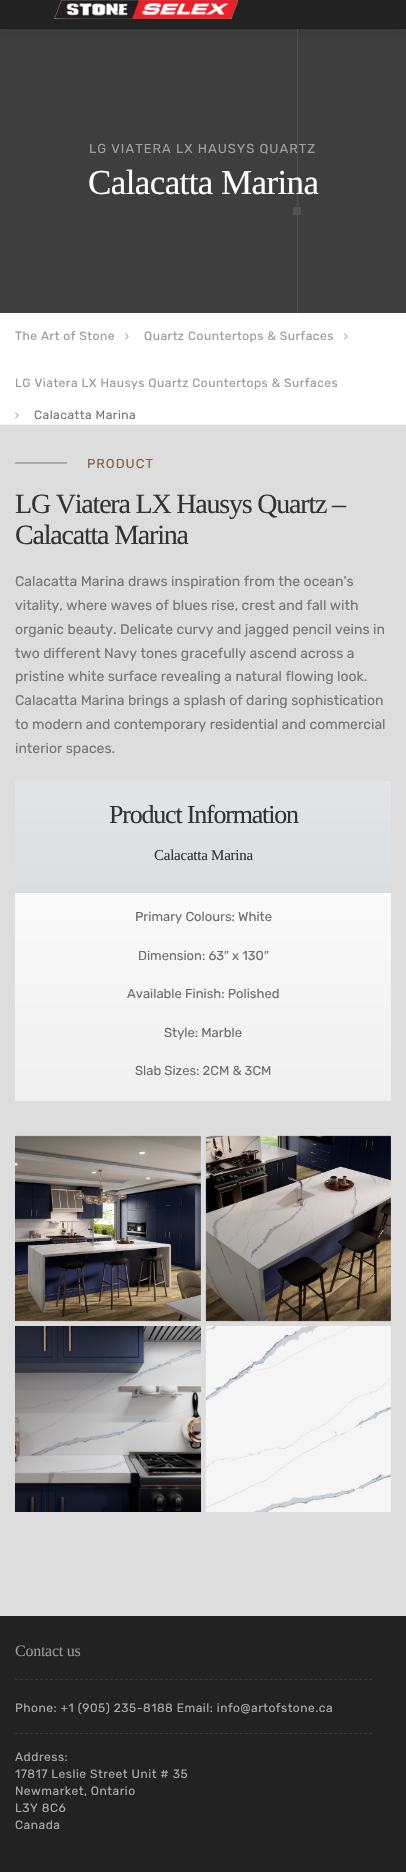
#include "include/core/SkBlurTypes.h"
#include "include/core/SkCanvas.h"
#include "include/core/SkData.h"
#include "include/core/SkFont.h"
#include "include/core/SkFontMgr.h"
#include "include/core/SkImage.h"
#include "include/core/SkMaskFilter.h"
#include "include/core/SkPaint.h"
#include "include/core/SkPathBuilder.h"
#include "include/core/SkTextBlob.h"
#include "include/effects/SkDashPathEffect.h"
#include "include/effects/SkGradientShader.h"
#include "include/utils/SkParsePath.h"

extern sk_sp<SkFontMgr> fontMgr;

void draw(SkCanvas* canvas) {
  SkPaint p;
  p.setAntiAlias(true);
  auto spacedText = [&](const char* s, float x, float y, const SkFont& font, const SkPaint& ink, float letter, float word) {
    std::vector<SkGlyphID> glyphs(font.countText(s, strlen(s), SkTextEncoding::kUTF8));
    std::vector<float> xs(glyphs.size());
    font.textToGlyphs(s, strlen(s), SkTextEncoding::kUTF8, glyphs);
    font.getXPos(glyphs, xs, x);
    float extra = 0;
    for (size_t i = 0; i < glyphs.size(); i++) {
      xs[i] += extra;
      extra += letter + word * (glyphs[i] == font.unicharToGlyph(' '));
    }
    canvas->drawTextBlob(SkTextBlob::MakeFromPosHGlyphs(glyphs, xs, y, font), 0, 0, ink);
  };
  canvas->clear(SkColorSetRGB(221, 221, 221));
  p.setColor(SkColorSetRGB(62, 62, 62));
  canvas->drawRect(SkRect::MakeLTRB(0, 29, 406, 313), p);
  canvas->drawImageRect(SkImages::DeferredFromEncodedData(SkData::MakeFromFileName("images/2.png")), SkRect::MakeLTRB(293, 29, 301, 313), SkSamplingOptions());
  p.setColor(SkColorSetARGB(26, 0, 0, 0));
  p.setMaskFilter(SkMaskFilter::MakeBlur(kNormal_SkBlurStyle, 5));
  canvas->drawRect(SkRect::MakeLTRB(0, -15, 406, 33), p);
  p.setMaskFilter(nullptr);
  p.setColor(SkColorSetRGB(34, 34, 34));
  canvas->drawRect(SkRect::MakeLTRB(0, 0, 406, 29), p);
  canvas->drawImageRect(SkImages::DeferredFromEncodedData(SkData::MakeFromFileName("images/1.png")), SkRect::MakeLTRB(54, 0, 239, 19), SkSamplingOptions());
  p.setColor(SK_ColorWHITE);
  canvas->drawRect(SkRect::MakeLTRB(0, 313, 406, 424), p);
  p.setColor(SkColorSetRGB(245, 245, 245));
  canvas->drawRect(SkRect::MakeLTRB(0, 424, 406, 425), p);
  canvas->drawImageRect(SkImages::DeferredFromEncodedData(SkData::MakeFromFileName("images/3.png")), SkRect::MakeLTRB(125, 333, 129, 340), SkSamplingOptions());
  canvas->drawImageRect(SkImages::DeferredFromEncodedData(SkData::MakeFromFileName("images/3.png")), SkRect::MakeLTRB(344, 333, 348, 340), SkSamplingOptions());
  canvas->drawImageRect(SkImages::DeferredFromEncodedData(SkData::MakeFromFileName("images/3.png")), SkRect::MakeLTRB(15, 412, 19, 419), SkSamplingOptions());
  p.setColor(SkColorSetRGB(171, 171, 171));
  canvas->drawRect(SkRect::MakeLTRB(15, 462, 67, 464), p);
  {
    const SkColor colors[] = {SK_ColorWHITE, SkColorSetRGB(240, 240, 240)};
    const float stops[] = {0, 1};
    const SkPoint ends[] = {{203, 781}, {203, 1101}};
    p.setShader(SkGradientShader::MakeLinear(ends, colors, stops, 2, SkTileMode::kClamp));
    p.setAlpha(255);
  }
  canvas->drawRect(SkRect::MakeLTRB(15, 893, 391, 1101), p);
  {
    const SkColor colors[] = {SkColorSetRGB(227, 228, 230), SkColorSetRGB(217, 222, 224)};
    const float stops[] = {0, 1};
    const SkPoint ends[] = {{203, 781}, {203, 893}};
    p.setShader(SkGradientShader::MakeLinear(ends, colors, stops, 2, SkTileMode::kClamp));
    p.setAlpha(255);
  }
  canvas->drawRect(SkRect::MakeLTRB(15, 781, 391, 893), p);
  canvas->drawImageRect(SkImages::DeferredFromEncodedData(SkData::MakeFromFileName("images/4.png")), SkRect::MakeLTRB(15, 1135, 201, 1322), SkSamplingOptions());
  canvas->drawImageRect(SkImages::DeferredFromEncodedData(SkData::MakeFromFileName("images/5.png")), SkRect::MakeLTRB(205, 1135, 391, 1322), SkSamplingOptions());
  canvas->drawImageRect(SkImages::DeferredFromEncodedData(SkData::MakeFromFileName("images/6.png")), SkRect::MakeLTRB(15, 1326, 201, 1512), SkSamplingOptions());
  canvas->drawImageRect(SkImages::DeferredFromEncodedData(SkData::MakeFromFileName("images/7.png")), SkRect::MakeLTRB(205, 1326, 391, 1512), SkSamplingOptions());
  p.setShader(nullptr);
  p.setColor(SkColorSetRGB(34, 34, 34));
  canvas->drawRect(SkRect::MakeLTRB(0, 1616, 406, 1872), p);
  p.setStyle(SkPaint::kStroke_Style);
  p.setStrokeWidth(1);
  p.setColor(SkColorSetRGB(56, 56, 56));
  p.setPathEffect(SkDashPathEffect::Make({{3, 1.99f}}, 0));
  canvas->drawPath(SkPathBuilder().moveTo(15, 1679.5f).lineTo(372, 1679.5f).detach(), p);
  p.setPathEffect(nullptr);
  p.setPathEffect(SkDashPathEffect::Make({{3, 1.99f}}, 0));
  canvas->drawPath(SkPathBuilder().moveTo(15, 1733.5f).lineTo(372, 1733.5f).detach(), p);
  p.setPathEffect(nullptr);
  SkFont font1(fontMgr->matchFamilyStyle("Rubik", SkFontStyle::Normal()), 13);
  font1.setSubpixel(true);
  p.setStyle(SkPaint::kFill_Style);
  p.setColor(SkColorSetRGB(159, 159, 159));
  spacedText("LG VIATERA LX HAUSYS QUARTZ", 89, 153, font1, p, 1, 0);
  SkFont font2(fontMgr->matchFamilyStyle("Liberation Serif", SkFontStyle::Normal()), 35);
  font2.setSubpixel(true);
  p.setColor(SK_ColorWHITE);
  spacedText("Calacatta Marina", 88, 194, font2, p, -0.6f, 0);
  SkFont font3(fontMgr->matchFamilyStyle("Rubik", SkFontStyle::Normal()), 12.05f);
  font3.setSubpixel(true);
  p.setColor(SkColorSetRGB(153, 153, 153));
  spacedText("The Art of Stone", 15, 340, font3, p, 0.5f, 0);
  spacedText("Quartz Countertops & Surfaces", 144, 340, font3, p, 0.5f, 0);
  spacedText("LG Viatera LX Hausys Quartz Countertops & Surfaces", 15, 387, font3, p, 0.5f, 0);
  p.setColor(SkColorSetRGB(119, 119, 119));
  spacedText("Calacatta Marina", 34, 419, font3, p, 0.5f, 0);
  p.setColor(SkColorSetRGB(125, 103, 65));
  spacedText("PRODUCT", 87, 468, font1, p, 1, 0);
  SkFont font4(fontMgr->matchFamilyStyle("Liberation Serif", SkFontStyle::Normal()), 28);
  font4.setSubpixel(true);
  p.setColor(SkColorSetRGB(51, 51, 51));
  spacedText("LG Viatera LX Hausys Quartz –", 15, 513, font4, p, -1.2f, 0);
  spacedText("Calacatta Marina", 15, 544, font4, p, -1.2f, 0);
  SkFont font5(fontMgr->matchFamilyStyle("Rubik", SkFontStyle::Normal()), 14);
  font5.setSubpixel(true);
  p.setColor(SkColorSetRGB(119, 119, 119));
  canvas->drawString("Calacatta Marina draws inspiration from the ocean’s", 15, 586, font5, p);
  canvas->drawString("vitality, where waves of blues rise, crest and fall with", 15, 610, font5, p);
  canvas->drawString("organic beauty. Delicate curvy and jagged pencil veins in", 15, 634, font5, p);
  canvas->drawString("two different Navy tones gracefully ascend across a", 15, 658, font5, p);
  canvas->drawString("pristine white surface revealing a natural flowing look.", 15, 681, font5, p);
  canvas->drawString("Calacatta Marina brings a splash of daring sophistication", 15, 705, font5, p);
  canvas->drawString("to modern and contemporary residential and commercial", 15, 729, font5, p);
  canvas->drawString("interior spaces.", 15, 753, font5, p);
  SkFont font6(fontMgr->matchFamilyStyle("Liberation Serif", SkFontStyle::Normal()), 26);
  font6.setSubpixel(true);
  p.setColor(SkColorSetRGB(51, 51, 51));
  spacedText("Product Information", 109, 823, font6, p, -1.2f, 0);
  SkFont font7(fontMgr->matchFamilyStyle("Liberation Serif", SkFontStyle::Normal()), 15);
  font7.setSubpixel(true);
  spacedText("Calacatta Marina", 154, 860, font7, p, -0.25f, 0);
  p.setColor(SkColorSetRGB(111, 111, 111));
  canvas->drawString("Primary Colours: White", 135, 921, font1, p);
  canvas->drawString("Dimension: 63", 138, 960, font1, p);
  SkFont font8(fontMgr->matchFamilyStyle("Liberation Sans", SkFontStyle::Normal()), 13);
  font8.setSubpixel(true);
  canvas->drawString("″", 224, 960, font8, p);
  canvas->drawString("x 130", 232, 960, font1, p);
  canvas->drawString("″", 264, 960, font8, p);
  canvas->drawString("Available Finish: Polished", 127, 998, font1, p);
  canvas->drawString("Style: Marble", 164, 1037, font1, p);
  canvas->drawString("Slab Sizes: 2CM & 3CM", 135, 1075, font1, p);
  SkFont font9(fontMgr->matchFamilyStyle("Liberation Serif", SkFontStyle::Normal()), 16);
  font9.setSubpixel(true);
  p.setColor(SkColorSetRGB(153, 153, 153));
  spacedText("Contact us", 15, 1656, font9, p, -0.25f, 0);
  p.setColor(SkColorSetRGB(170, 170, 170));
  spacedText("Phone: +1 (905) 235-8188 Email: info@artofstone.ca", 15, 1712, font3, p, 0.5f, 0);
  spacedText("Address:", 15, 1761, font3, p, 0.5f, 0);
  spacedText("17817 Leslie Street Unit # 35", 15, 1778, font3, p, 0.5f, 0);
  spacedText("Newmarket, Ontario", 15, 1795, font3, p, 0.5f, 0);
  spacedText("L3Y 8C6", 15, 1812, font3, p, 0.5f, 0);
  spacedText("Canada", 15, 1829, font3, p, 0.5f, 0);
}
